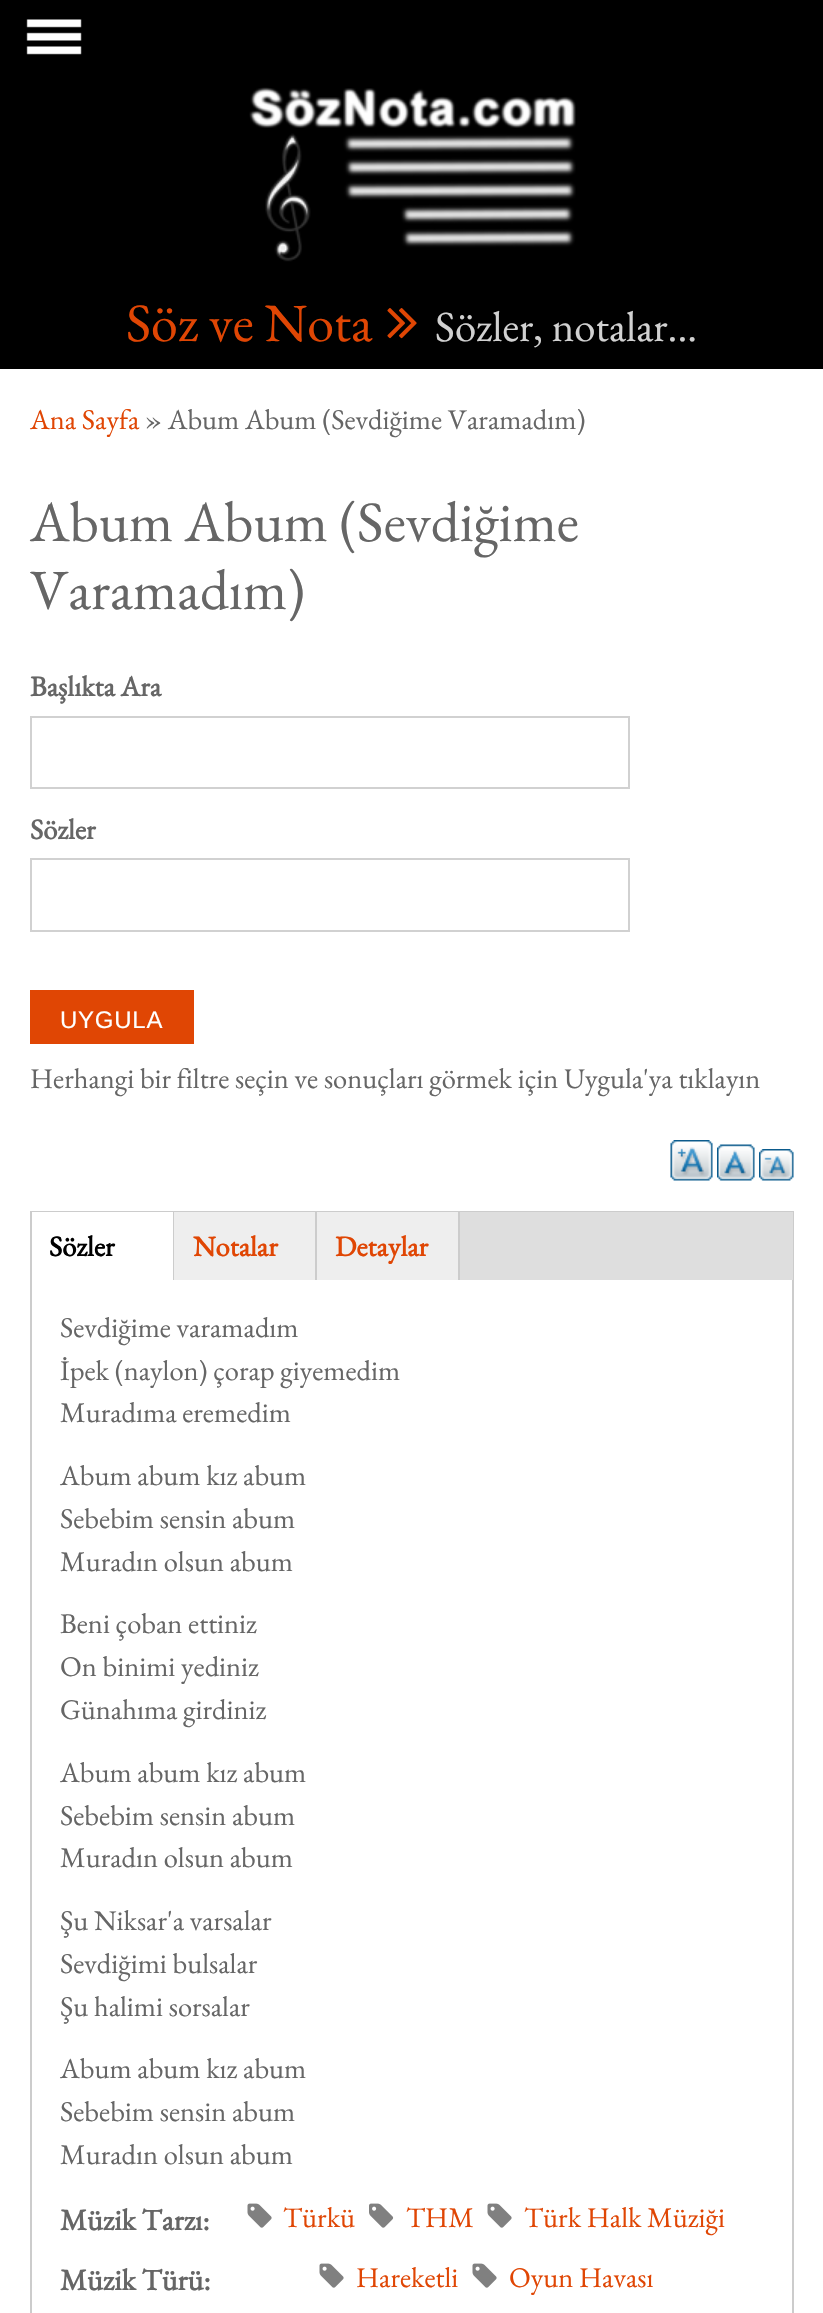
#include "include/core/SkBlurTypes.h"
#include "include/core/SkCanvas.h"
#include "include/core/SkData.h"
#include "include/core/SkFont.h"
#include "include/core/SkFontMgr.h"
#include "include/core/SkImage.h"
#include "include/core/SkMaskFilter.h"
#include "include/core/SkPaint.h"
#include "include/core/SkPathBuilder.h"
#include "include/core/SkTextBlob.h"
#include "include/effects/SkDashPathEffect.h"
#include "include/effects/SkGradientShader.h"
#include "include/utils/SkParsePath.h"

extern sk_sp<SkFontMgr> fontMgr;

void draw(SkCanvas* canvas) {
  SkPaint p;
  p.setAntiAlias(true);
  auto spacedText = [&](const char* s, float x, float y, const SkFont& font, const SkPaint& ink, float letter, float word) {
    std::vector<SkGlyphID> glyphs(font.countText(s, strlen(s), SkTextEncoding::kUTF8));
    std::vector<float> xs(glyphs.size());
    font.textToGlyphs(s, strlen(s), SkTextEncoding::kUTF8, glyphs);
    font.getXPos(glyphs, xs, x);
    float extra = 0;
    for (size_t i = 0; i < glyphs.size(); i++) {
      xs[i] += extra;
      extra += letter + word * (glyphs[i] == font.unicharToGlyph(' '));
    }
    canvas->drawTextBlob(SkTextBlob::MakeFromPosHGlyphs(glyphs, xs, y, font), 0, 0, ink);
  };
  canvas->clear(SK_ColorWHITE);
  p.setColor(SK_ColorBLACK);
  canvas->drawRect(SkRect::MakeLTRB(0, 0, 823, 369), p);
  canvas->drawImageRect(SkImages::DeferredFromEncodedData(SkData::MakeFromFileName("images/1.png")), SkRect::MakeLTRB(26, 19, 82, 55), SkSamplingOptions());
  canvas->drawImageRect(SkImages::DeferredFromEncodedData(SkData::MakeFromFileName("images/2.png")), SkRect::MakeLTRB(249, 87, 576, 262), SkSamplingOptions());
  canvas->drawImageRect(SkImages::DeferredFromEncodedData(SkData::MakeFromFileName("images/3.png")), SkRect::MakeLTRB(387, 308, 417, 339), SkSamplingOptions());
  p.setStyle(SkPaint::kStroke_Style);
  p.setStrokeWidth(2);
  p.setColor(SkColorSetRGB(209, 209, 209));
  canvas->drawRect(SkRect::MakeLTRB(31, 717, 629, 788), p);
  canvas->drawRect(SkRect::MakeLTRB(31, 859, 629, 931), p);
  p.setStyle(SkPaint::kFill_Style);
  p.setColor(SkColorSetRGB(224, 70, 4));
  canvas->drawRect(SkRect::MakeLTRB(30, 990, 194, 1044), p);
  canvas->drawImageRect(SkImages::DeferredFromEncodedData(SkData::MakeFromFileName("images/4.png")), SkRect::MakeLTRB(670, 1140, 713, 1181), SkSamplingOptions());
  canvas->drawImageRect(SkImages::DeferredFromEncodedData(SkData::MakeFromFileName("images/5.png")), SkRect::MakeLTRB(717, 1144, 755, 1181), SkSamplingOptions());
  canvas->drawImageRect(SkImages::DeferredFromEncodedData(SkData::MakeFromFileName("images/6.png")), SkRect::MakeLTRB(759, 1149, 794, 1181), SkSamplingOptions());
  p.setStyle(SkPaint::kStroke_Style);
  p.setColor(SkColorSetRGB(204, 204, 204));
  canvas->drawRect(SkRect::MakeLTRB(31, 1212, 793, 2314), p);
  p.setStyle(SkPaint::kFill_Style);
  p.setColor(SkColorSetRGB(222, 222, 222));
  canvas->drawRect(SkRect::MakeLTRB(460, 1212, 793, 1280), p);
  p.setColor(SK_ColorWHITE);
  canvas->drawRect(SkRect::MakeLTRB(32, 1212, 173, 1213), p);
  p.setColor(SkColorSetRGB(204, 204, 204));
  canvas->drawRect(SkRect::MakeLTRB(173, 1212, 174, 1280), p);
  p.setColor(SkColorSetRGB(238, 238, 238));
  canvas->drawRect(SkRect::MakeLTRB(174, 1212, 315, 1280), p);
  p.setColor(SkColorSetRGB(204, 204, 204));
  canvas->drawRect(SkRect::MakeLTRB(315, 1212, 317, 1280), p);
  p.setColor(SkColorSetRGB(238, 238, 238));
  canvas->drawRect(SkRect::MakeLTRB(317, 1212, 458, 1280), p);
  p.setColor(SkColorSetRGB(204, 204, 204));
  canvas->drawRect(SkRect::MakeLTRB(458, 1212, 460, 1280), p);
  canvas->drawImageRect(SkImages::DeferredFromEncodedData(SkData::MakeFromFileName("images/7.png")), SkRect::MakeLTRB(247, 2203, 272, 2228), SkSamplingOptions());
  canvas->drawImageRect(SkImages::DeferredFromEncodedData(SkData::MakeFromFileName("images/8.png")), SkRect::MakeLTRB(369, 2203, 394, 2228), SkSamplingOptions());
  canvas->drawImageRect(SkImages::DeferredFromEncodedData(SkData::MakeFromFileName("images/7.png")), SkRect::MakeLTRB(487, 2203, 512, 2228), SkSamplingOptions());
  canvas->drawImageRect(SkImages::DeferredFromEncodedData(SkData::MakeFromFileName("images/7.png")), SkRect::MakeLTRB(319, 2263, 344, 2288), SkSamplingOptions());
  canvas->drawImageRect(SkImages::DeferredFromEncodedData(SkData::MakeFromFileName("images/7.png")), SkRect::MakeLTRB(472, 2263, 497, 2288), SkSamplingOptions());
  SkFont font1(fontMgr->matchFamilyStyle("EB Garamond", SkFontStyle::Normal()), 54);
  font1.setSubpixel(true);
  p.setColor(SkColorSetRGB(224, 70, 4));
  canvas->drawString("Söz ve Nota", 126, 341, font1, p);
  SkFont font2(fontMgr->matchFamilyStyle("EB Garamond", SkFontStyle::Normal()), 42.75f);
  font2.setSubpixel(true);
  p.setColor(SkColorSetRGB(209, 209, 209));
  canvas->drawString("Sözler, notalar...", 435, 341, font2, p);
  SkFont font3(fontMgr->matchFamilyStyle("EB Garamond", SkFontStyle::Normal()), 28.5f);
  font3.setSubpixel(true);
  p.setColor(SkColorSetRGB(224, 70, 4));
  canvas->drawString("Ana Sayfa", 30, 429, font3, p);
  p.setColor(SkColorSetRGB(102, 102, 102));
  canvas->drawString("» Abum Abum (Sevdiğime Varamadım)", 145, 429, font3, p);
  SkFont font4(fontMgr->matchFamilyStyle("EB Garamond", SkFontStyle::Normal()), 57);
  font4.setSubpixel(true);
  canvas->drawString("Abum Abum (Sevdiğime", 30, 541, font4, p);
  canvas->drawString("Varamadım)", 30, 609, font4, p);
  SkFont font5(fontMgr->matchFamilyStyle("EB Garamond", SkFontStyle::Bold()), 28.5f);
  font5.setSubpixel(true);
  canvas->drawString("Başlıkta Ara", 30, 696, font5, p);
  canvas->drawString("Sözler", 30, 839, font5, p);
  SkFont font6(fontMgr->matchFamilyStyle("Liberation Sans", SkFontStyle::Normal()), 24);
  font6.setSubpixel(true);
  p.setColor(SK_ColorWHITE);
  spacedText("UYGULA", 60, 1028, font6, p, 0.75f, 0);
  p.setColor(SkColorSetRGB(102, 102, 102));
  canvas->drawString("Herhangi bir filtre seçin ve sonuçları görmek için Uygula'ya tıklayın", 30, 1088, font3, p);
  p.setColor(SK_ColorBLACK);
  canvas->drawString("Sözler", 49, 1256, font5, p);
  p.setColor(SkColorSetRGB(224, 70, 4));
  canvas->drawString("Notalar", 193, 1256, font5, p);
  canvas->drawString("Detaylar", 335, 1256, font5, p);
  p.setColor(SkColorSetRGB(102, 102, 102));
  canvas->drawString("Sevdiğime varamadım", 60, 1337, font3, p);
  canvas->drawString("İpek (naylon) çorap giyemedim", 60, 1380, font3, p);
  canvas->drawString("Muradıma eremedim", 60, 1422, font3, p);
  canvas->drawString("Abum abum kız abum", 60, 1485, font3, p);
  canvas->drawString("Sebebim sensin abum", 60, 1528, font3, p);
  canvas->drawString("Muradın olsun abum", 60, 1571, font3, p);
  canvas->drawString("Beni çoban ettiniz", 60, 1633, font3, p);
  canvas->drawString("On binimi yediniz", 60, 1676, font3, p);
  canvas->drawString("Günahıma girdiniz", 60, 1719, font3, p);
  canvas->drawString("Abum abum kız abum", 60, 1782, font3, p);
  canvas->drawString("Sebebim sensin abum", 60, 1825, font3, p);
  canvas->drawString("Muradın olsun abum", 60, 1867, font3, p);
  canvas->drawString("Şu Niksar'a varsalar", 60, 1930, font3, p);
  canvas->drawString("Sevdiğimi bulsalar", 60, 1973, font3, p);
  canvas->drawString("Şu halimi sorsalar", 60, 2016, font3, p);
  canvas->drawString("Abum abum kız abum", 60, 2078, font3, p);
  canvas->drawString("Sebebim sensin abum", 60, 2121, font3, p);
  canvas->drawString("Muradın olsun abum", 60, 2164, font3, p);
  SkFont font7(fontMgr->matchFamilyStyle("EB Garamond", SkFontStyle::Bold()), 30);
  font7.setSubpixel(true);
  canvas->drawString("Müzik Tarzı:", 60, 2230, font7, p);
  p.setColor(SkColorSetRGB(224, 70, 4));
  canvas->drawString("Türkü", 283, 2227, font3, p);
  canvas->drawString("THM", 406, 2227, font3, p);
  canvas->drawString("Türk Halk Müziği", 524, 2227, font3, p);
  p.setColor(SkColorSetRGB(102, 102, 102));
  canvas->drawString("Müzik Türü:", 60, 2290, font7, p);
  p.setColor(SkColorSetRGB(224, 70, 4));
  canvas->drawString("Hareketli", 356, 2287, font3, p);
  canvas->drawString("Oyun Havası", 509, 2287, font3, p);
}
